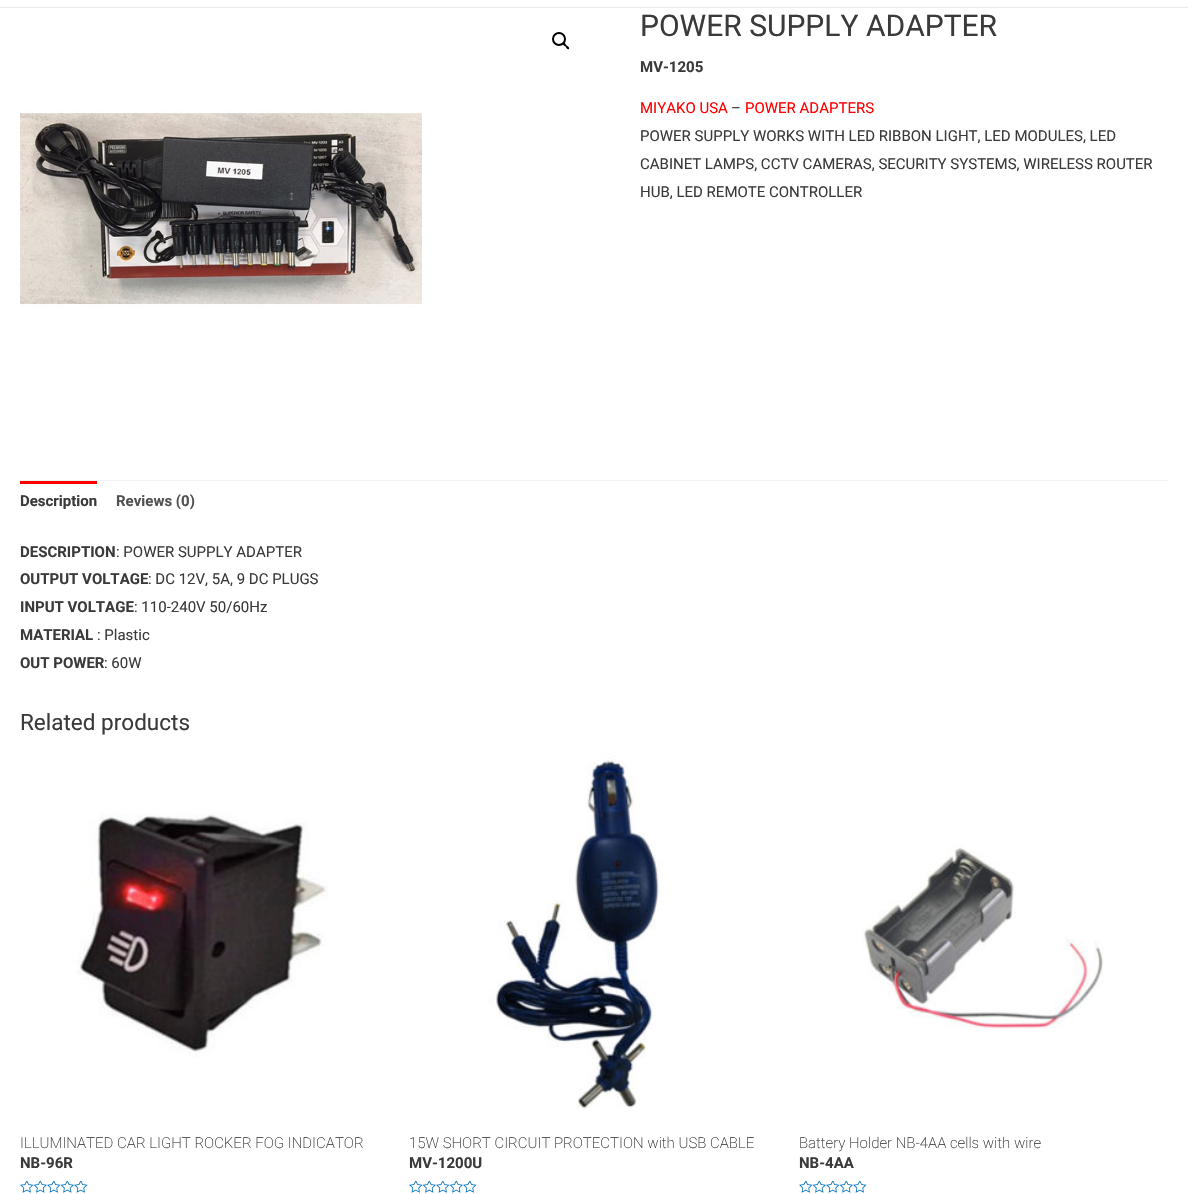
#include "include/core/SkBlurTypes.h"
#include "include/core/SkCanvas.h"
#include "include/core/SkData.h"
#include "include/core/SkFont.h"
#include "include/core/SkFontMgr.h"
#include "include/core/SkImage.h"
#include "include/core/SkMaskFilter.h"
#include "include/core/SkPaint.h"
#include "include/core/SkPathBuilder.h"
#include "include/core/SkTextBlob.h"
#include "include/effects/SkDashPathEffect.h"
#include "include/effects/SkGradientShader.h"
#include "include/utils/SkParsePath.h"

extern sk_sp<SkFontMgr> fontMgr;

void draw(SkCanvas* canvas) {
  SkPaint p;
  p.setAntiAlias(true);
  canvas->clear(SK_ColorWHITE);
  p.setColor(SkColorSetRGB(234, 234, 234));
  canvas->drawRect(SkRect::MakeLTRB(0, 7, 1188, 8), p);
  p.setStyle(SkPaint::kStroke_Style);
  p.setStrokeWidth(2);
  p.setColor(SK_ColorBLACK);
  canvas->drawCircle(559, 39, 6, p);
  p.setStyle(SkPaint::kFill_Style);
  canvas->drawPath(SkPathBuilder().moveTo(563, 43).cubicTo(564.5f, 42, 566, 44.5f, 566.5f, 45.5f).cubicTo(567.5f, 46, 570, 47.5f, 569, 49).cubicTo(567.5f, 50, 566, 47.5f, 565.5f, 46.5f).cubicTo(564.5f, 46, 562, 44.5f, 563, 43).close().detach(), p);
  canvas->drawImageRect(SkImages::DeferredFromEncodedData(SkData::MakeFromFileName("images/1.png")), SkRect::MakeLTRB(20, 110, 422, 308), SkSamplingOptions());
  p.setColor(SkColorSetRGB(242, 242, 242));
  canvas->drawRect(SkRect::MakeLTRB(20, 480, 1168, 481), p);
  p.setColor(SkColorSetRGB(255, 0, 0));
  canvas->drawRect(SkRect::MakeLTRB(20, 481, 97, 484), p);
  canvas->drawImageRect(SkImages::DeferredFromEncodedData(SkData::MakeFromFileName("images/2.png")), SkRect::MakeLTRB(76, 813, 328, 1058), SkSamplingOptions());
  canvas->drawImageRect(SkImages::DeferredFromEncodedData(SkData::MakeFromFileName("images/3.png")), SkRect::MakeLTRB(20, 1181, 88, 1193), SkSamplingOptions());
  canvas->drawImageRect(SkImages::DeferredFromEncodedData(SkData::MakeFromFileName("images/4.png")), SkRect::MakeLTRB(489, 753, 663, 1110), SkSamplingOptions());
  canvas->drawImageRect(SkImages::DeferredFromEncodedData(SkData::MakeFromFileName("images/3.png")), SkRect::MakeLTRB(409, 1181, 477, 1193), SkSamplingOptions());
  canvas->drawImageRect(SkImages::DeferredFromEncodedData(SkData::MakeFromFileName("images/5.png")), SkRect::MakeLTRB(861, 843, 1104, 1029), SkSamplingOptions());
  canvas->drawImageRect(SkImages::DeferredFromEncodedData(SkData::MakeFromFileName("images/3.png")), SkRect::MakeLTRB(799, 1181, 867, 1193), SkSamplingOptions());
  SkFont font1(fontMgr->matchFamilyStyle("Roboto", SkFontStyle::Normal()), 30);
  font1.setSubpixel(true);
  p.setColor(SkColorSetRGB(58, 58, 58));
  canvas->drawString("POWER SUPPLY ADAPTER", 640, 36, font1, p);
  SkFont font2(fontMgr->matchFamilyStyle("Roboto", SkFontStyle::Bold()), 15);
  font2.setSubpixel(true);
  canvas->drawString("MV-1205", 640, 72, font2, p);
  SkFont font3(fontMgr->matchFamilyStyle("Roboto", SkFontStyle::Normal()), 15);
  font3.setSubpixel(true);
  p.setColor(SkColorSetRGB(255, 0, 0));
  canvas->drawString("MIYAKO USA", 640, 113, font3, p);
  p.setColor(SkColorSetRGB(58, 58, 58));
  canvas->drawString("–", 731, 113, font3, p);
  p.setColor(SkColorSetRGB(255, 0, 0));
  canvas->drawString("POWER ADAPTERS", 745, 113, font3, p);
  p.setColor(SkColorSetRGB(58, 58, 58));
  canvas->drawString("POWER SUPPLY WORKS WITH LED RIBBON LIGHT, LED MODULES, LED", 640, 141, font3, p);
  canvas->drawString("CABINET LAMPS, CCTV CAMERAS, SECURITY SYSTEMS, WIRELESS ROUTER", 640, 169, font3, p);
  canvas->drawString("HUB, LED REMOTE CONTROLLER", 640, 197, font3, p);
  canvas->drawString("Description", 20, 506, font2, p);
  p.setColor(SkColorSetRGB(81, 81, 81));
  canvas->drawString("Reviews (0)", 116, 506, font2, p);
  p.setColor(SkColorSetRGB(58, 58, 58));
  canvas->drawString("DESCRIPTION", 20, 557, font2, p);
  canvas->drawString(": POWER SUPPLY ADAPTER", 116, 557, font3, p);
  canvas->drawString("OUTPUT VOLTAGE", 20, 584, font2, p);
  canvas->drawString(": DC 12V, 5A, 9 DC PLUGS", 148, 584, font3, p);
  canvas->drawString("INPUT VOLTAGE", 20, 612, font2, p);
  canvas->drawString(": 110-240V 50/60Hz", 134, 612, font3, p);
  canvas->drawString("MATERIAL", 20, 640, font2, p);
  canvas->drawString(": Plastic", 97, 640, font3, p);
  canvas->drawString("OUT POWER", 20, 668, font2, p);
  canvas->drawString(": 60W", 104, 668, font3, p);
  SkFont font4(fontMgr->matchFamilyStyle("Roboto", SkFontStyle::Normal()), 22.5f);
  font4.setSubpixel(true);
  canvas->drawString("Related products", 20, 730, font4, p);
  SkFont font5(fontMgr->matchFamilyStyle("Roboto", SkFontStyle(200, SkFontStyle::kNormal_Width, SkFontStyle::kUpright_Slant)), 15);
  font5.setSubpixel(true);
  canvas->drawString("ILLUMINATED CAR LIGHT ROCKER FOG INDICATOR", 20, 1148, font5, p);
  canvas->drawString("NB-96R", 20, 1168, font2, p);
  canvas->drawString("15W SHORT CIRCUIT PROTECTION with USB CABLE", 409, 1148, font5, p);
  canvas->drawString("MV-1200U", 409, 1168, font2, p);
  canvas->drawString("Battery Holder NB-4AA cells with wire", 799, 1148, font5, p);
  canvas->drawString("NB-4AA", 799, 1168, font2, p);
}
